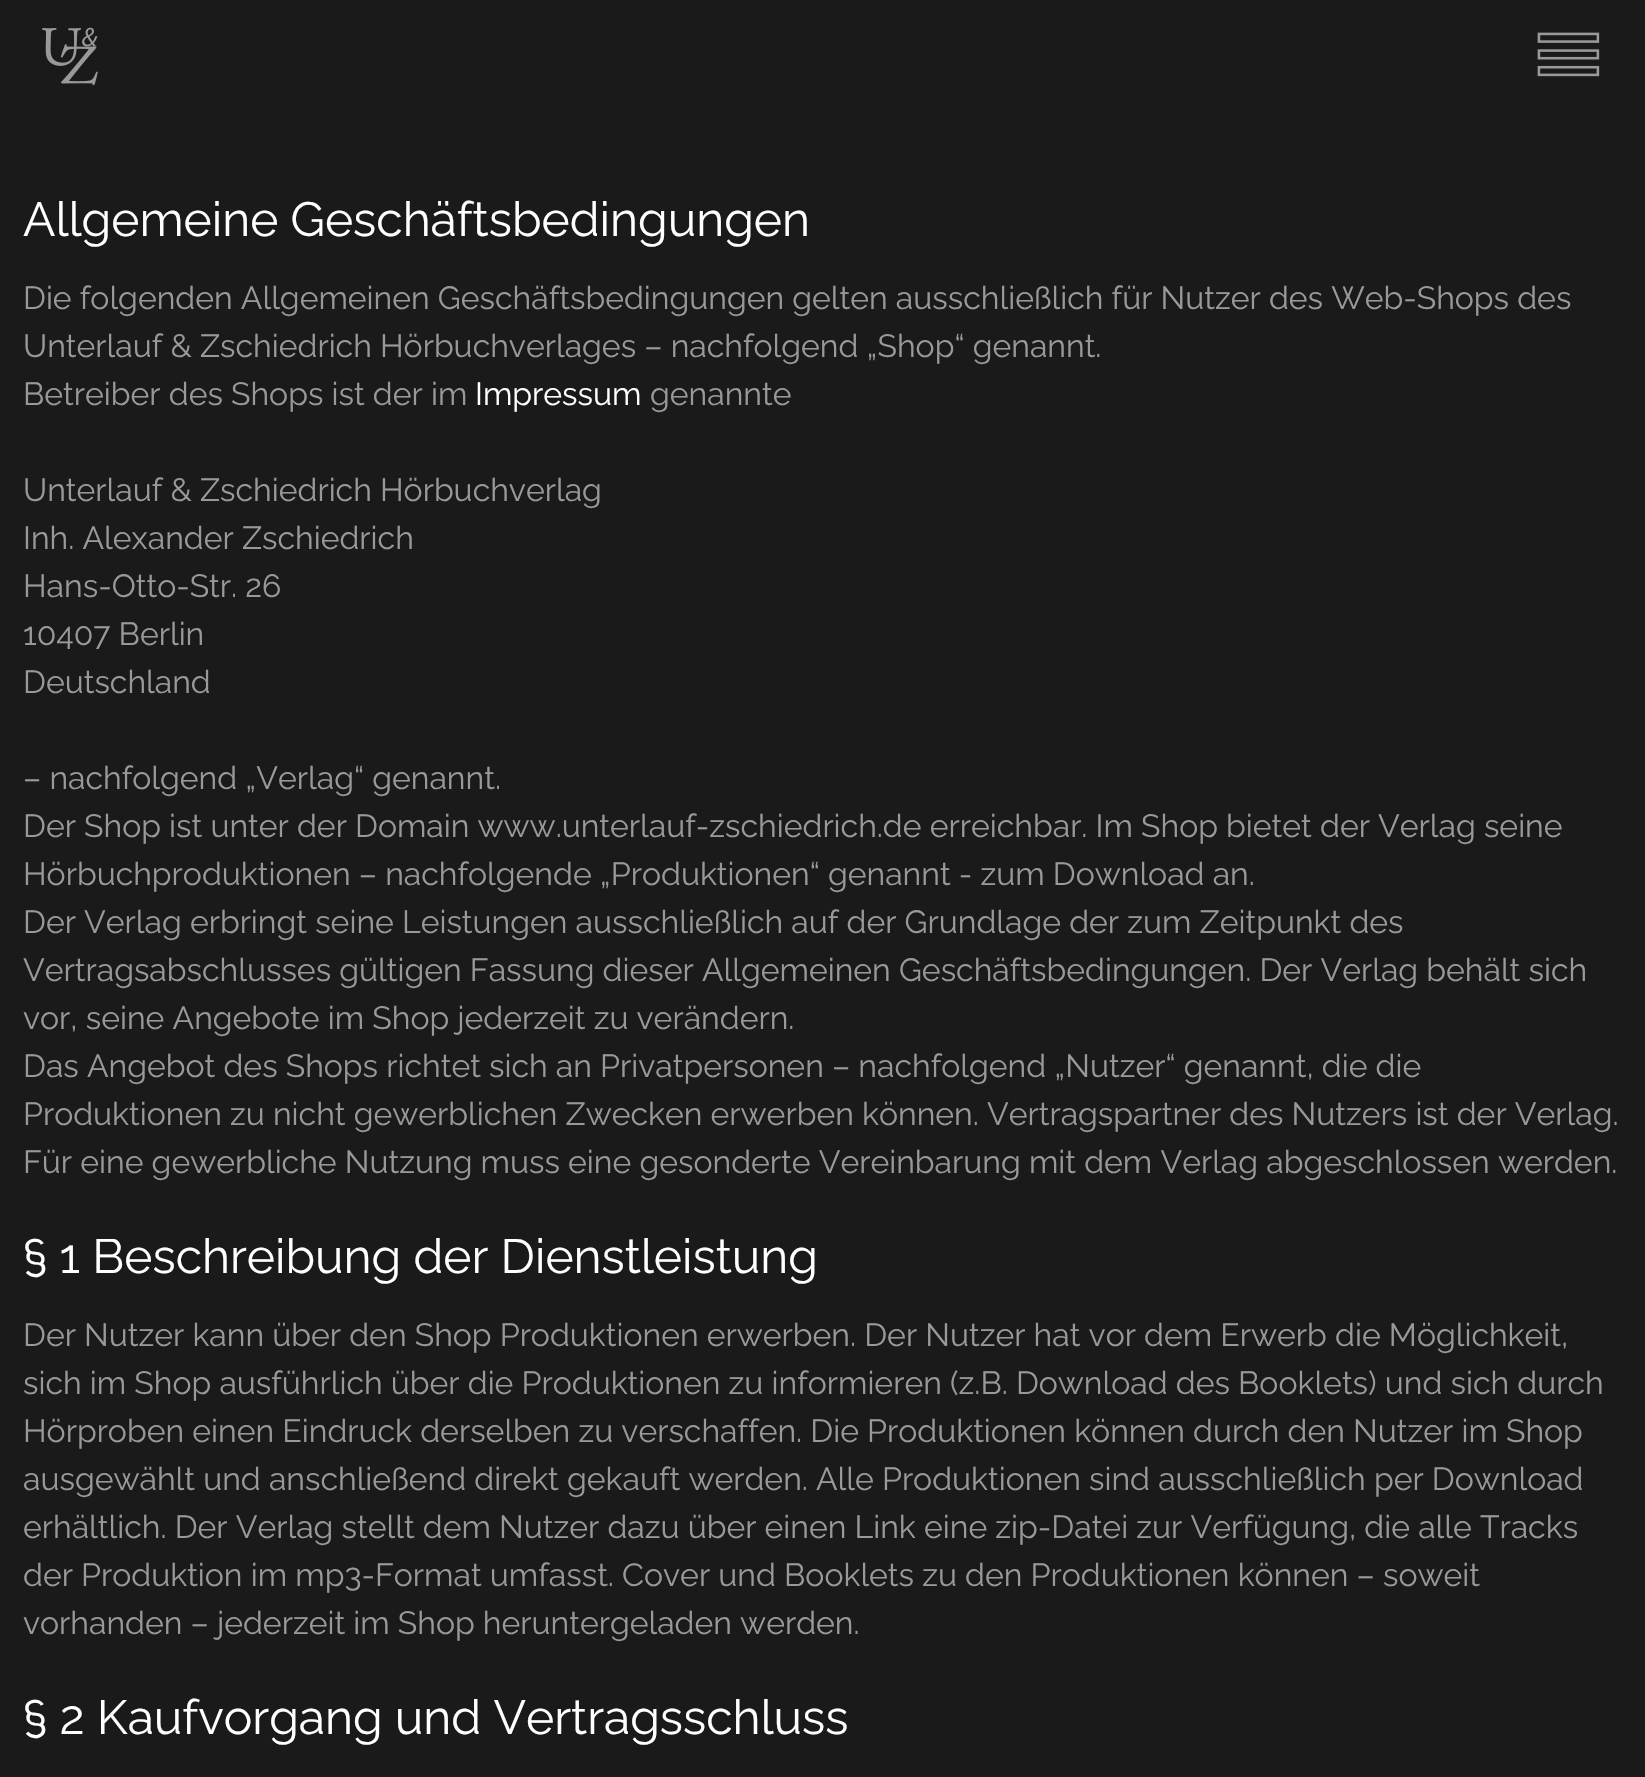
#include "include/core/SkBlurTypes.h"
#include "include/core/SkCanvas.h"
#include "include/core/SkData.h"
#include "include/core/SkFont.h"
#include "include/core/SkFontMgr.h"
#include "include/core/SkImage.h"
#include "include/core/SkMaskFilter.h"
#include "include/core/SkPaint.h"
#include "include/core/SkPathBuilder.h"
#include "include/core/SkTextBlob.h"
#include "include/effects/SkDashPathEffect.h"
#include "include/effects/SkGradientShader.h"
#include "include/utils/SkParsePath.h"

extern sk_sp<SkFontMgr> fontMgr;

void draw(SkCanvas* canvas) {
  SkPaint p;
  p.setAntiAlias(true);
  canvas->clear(SkColorSetRGB(26, 26, 26));
  canvas->drawImageRect(SkImages::DeferredFromEncodedData(SkData::MakeFromFileName("images/1.png")), SkRect::MakeLTRB(42, 27, 98, 86), SkSamplingOptions());
  canvas->drawImageRect(SkImages::DeferredFromEncodedData(SkData::MakeFromFileName("images/2.png")), SkRect::MakeLTRB(1537, 32, 1600, 77), SkSamplingOptions());
  SkFont font1(fontMgr->matchFamilyStyle("Raleway", SkFontStyle(100, SkFontStyle::kNormal_Width, SkFontStyle::kUpright_Slant)), 48);
  font1.setSubpixel(true);
  p.setColor(SK_ColorWHITE);
  canvas->drawString("Allgemeine Geschäftsbedingungen", 23, 236, font1, p);
  SkFont font2(fontMgr->matchFamilyStyle("Raleway", SkFontStyle(100, SkFontStyle::kNormal_Width, SkFontStyle::kUpright_Slant)), 32);
  font2.setSubpixel(true);
  p.setColor(SkColorSetRGB(153, 153, 153));
  canvas->drawString("Die folgenden Allgemeinen Geschäftsbedingungen gelten ausschließlich für Nutzer des Web-Shops des", 23, 309, font2, p);
  canvas->drawString("Unterlauf & Zschiedrich Hörbuchverlages – nachfolgend „Shop“ genannt.", 23, 357, font2, p);
  canvas->drawString("Betreiber des Shops ist der im", 23, 405, font2, p);
  p.setColor(SK_ColorWHITE);
  canvas->drawString("Impressum", 475, 405, font2, p);
  p.setColor(SkColorSetRGB(153, 153, 153));
  canvas->drawString("genannte", 650, 405, font2, p);
  canvas->drawString("Unterlauf & Zschiedrich Hörbuchverlag", 23, 501, font2, p);
  canvas->drawString("Inh. Alexander Zschiedrich", 23, 549, font2, p);
  canvas->drawString("Hans-Otto-Str. 26", 23, 597, font2, p);
  canvas->drawString("10407 Berlin", 23, 645, font2, p);
  canvas->drawString("Deutschland", 23, 693, font2, p);
  canvas->drawString("– nachfolgend „Verlag“ genannt.", 23, 789, font2, p);
  canvas->drawString("Der Shop ist unter der Domain www.unterlauf-zschiedrich.de erreichbar. Im Shop bietet der Verlag seine", 23, 837, font2, p);
  canvas->drawString("Hörbuchproduktionen – nachfolgende „Produktionen“ genannt - zum Download an.", 23, 885, font2, p);
  canvas->drawString("Der Verlag erbringt seine Leistungen ausschließlich auf der Grundlage der zum Zeitpunkt des", 23, 933, font2, p);
  canvas->drawString("Vertragsabschlusses gültigen Fassung dieser Allgemeinen Geschäftsbedingungen. Der Verlag behält sich", 23, 981, font2, p);
  canvas->drawString("vor, seine Angebote im Shop jederzeit zu verändern.", 23, 1029, font2, p);
  canvas->drawString("Das Angebot des Shops richtet sich an Privatpersonen – nachfolgend „Nutzer“ genannt, die die", 23, 1077, font2, p);
  canvas->drawString("Produktionen zu nicht gewerblichen Zwecken erwerben können. Vertragspartner des Nutzers ist der Verlag.", 23, 1125, font2, p);
  canvas->drawString("Für eine gewerbliche Nutzung muss eine gesonderte Vereinbarung mit dem Verlag abgeschlossen werden.", 23, 1173, font2, p);
  p.setColor(SK_ColorWHITE);
  canvas->drawString("§ 1 Beschreibung der Dienstleistung", 23, 1273, font1, p);
  p.setColor(SkColorSetRGB(153, 153, 153));
  canvas->drawString("Der Nutzer kann über den Shop Produktionen erwerben. Der Nutzer hat vor dem Erwerb die Möglichkeit,", 23, 1346, font2, p);
  canvas->drawString("sich im Shop ausführlich über die Produktionen zu informieren (z.B. Download des Booklets) und sich durch", 23, 1394, font2, p);
  canvas->drawString("Hörproben einen Eindruck derselben zu verschaffen. Die Produktionen können durch den Nutzer im Shop", 23, 1442, font2, p);
  canvas->drawString("ausgewählt und anschließend direkt gekauft werden. Alle Produktionen sind ausschließlich per Download", 23, 1490, font2, p);
  canvas->drawString("erhältlich. Der Verlag stellt dem Nutzer dazu über einen Link eine zip-Datei zur Verfügung, die alle Tracks", 23, 1538, font2, p);
  canvas->drawString("der Produktion im mp3-Format umfasst. Cover und Booklets zu den Produktionen können – soweit", 23, 1586, font2, p);
  canvas->drawString("vorhanden – jederzeit im Shop heruntergeladen werden.", 23, 1634, font2, p);
  p.setColor(SK_ColorWHITE);
  canvas->drawString("§ 2 Kaufvorgang und Vertragsschluss", 23, 1734, font1, p);
}
